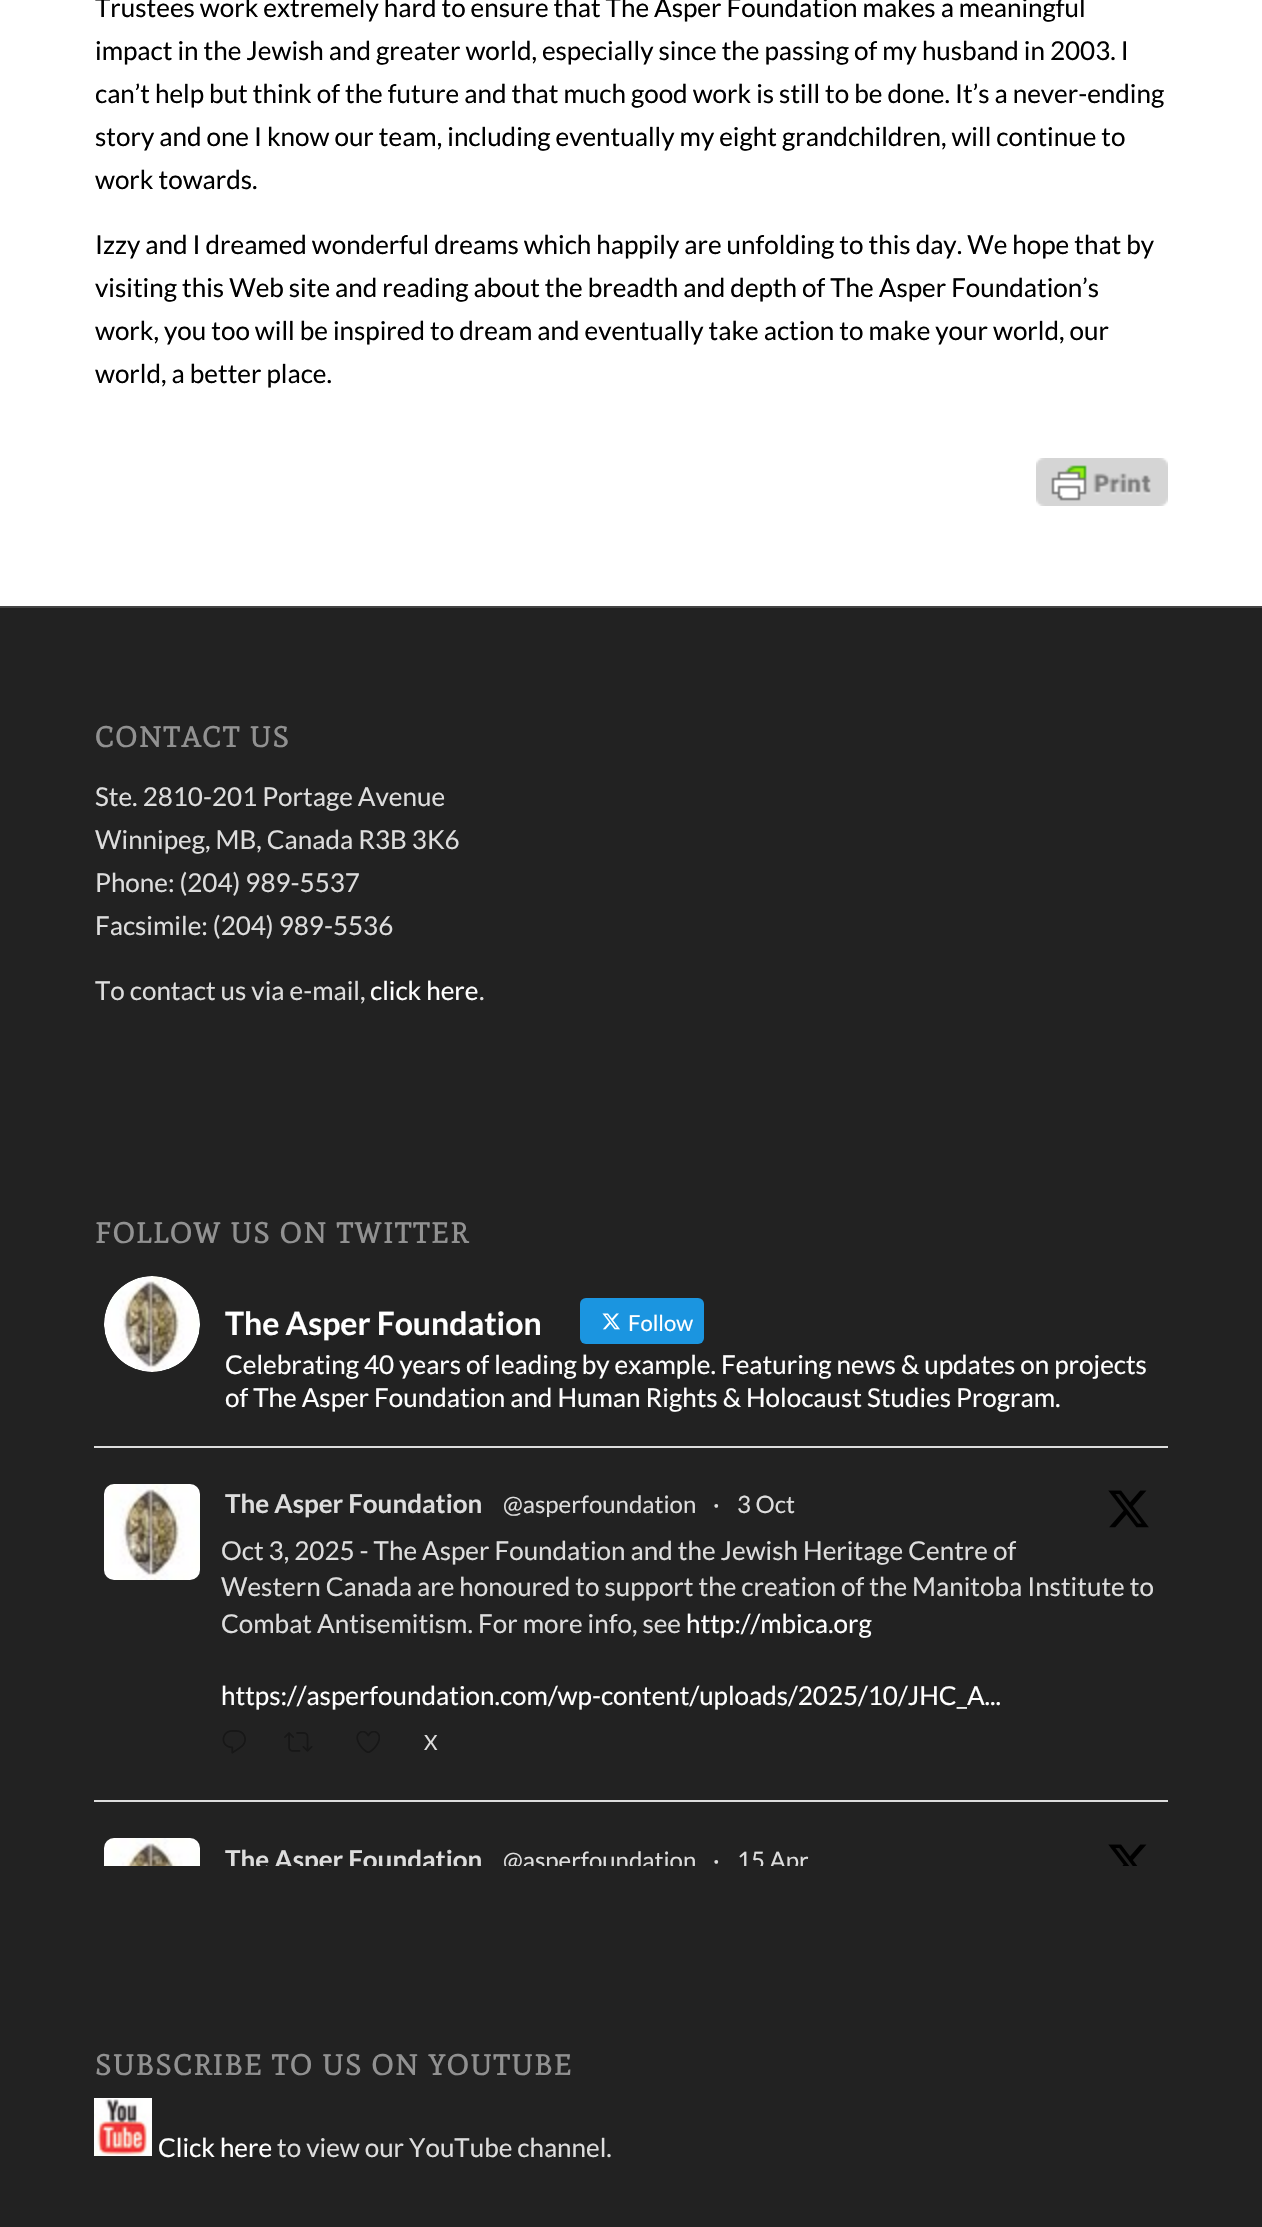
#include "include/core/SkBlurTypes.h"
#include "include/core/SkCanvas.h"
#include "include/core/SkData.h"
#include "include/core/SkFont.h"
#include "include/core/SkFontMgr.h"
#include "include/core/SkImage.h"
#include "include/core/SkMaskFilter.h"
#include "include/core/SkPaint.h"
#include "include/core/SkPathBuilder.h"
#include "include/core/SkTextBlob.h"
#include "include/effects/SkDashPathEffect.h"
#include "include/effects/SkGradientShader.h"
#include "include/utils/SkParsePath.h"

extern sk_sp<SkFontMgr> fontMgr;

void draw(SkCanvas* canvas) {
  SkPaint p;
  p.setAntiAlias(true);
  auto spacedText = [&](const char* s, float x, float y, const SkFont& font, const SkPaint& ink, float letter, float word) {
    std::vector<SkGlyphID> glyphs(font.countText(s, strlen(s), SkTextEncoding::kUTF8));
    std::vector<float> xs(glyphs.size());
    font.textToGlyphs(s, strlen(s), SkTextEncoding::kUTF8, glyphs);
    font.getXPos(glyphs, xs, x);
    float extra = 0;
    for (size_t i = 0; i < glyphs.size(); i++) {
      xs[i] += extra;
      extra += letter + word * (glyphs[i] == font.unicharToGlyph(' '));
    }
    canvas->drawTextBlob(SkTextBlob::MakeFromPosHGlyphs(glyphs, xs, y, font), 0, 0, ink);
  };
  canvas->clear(SK_ColorWHITE);
  canvas->drawImageRect(SkImages::DeferredFromEncodedData(SkData::MakeFromFileName("images/1.png")), SkRect::MakeLTRB(1036, 458, 1168, 506), SkSamplingOptions());
  p.setColor(SkColorSetRGB(34, 34, 34));
  canvas->drawRect(SkRect::MakeLTRB(0, 608, 1262, 2227), p);
  p.setColor(SkColorSetRGB(68, 68, 68));
  canvas->drawRect(SkRect::MakeLTRB(0, 606, 1262, 608), p);
  p.setColor(SkColorSetRGB(221, 221, 221));
  canvas->drawRect(SkRect::MakeLTRB(94, 1446, 1168, 1448), p);
  canvas->drawImageRect(SkImages::DeferredFromEncodedData(SkData::MakeFromFileName("images/2.png")), SkRect::MakeLTRB(104, 1276, 200, 1372), SkSamplingOptions());
  p.setColor(SkColorSetRGB(27, 149, 224));
  canvas->drawRoundRect(SkRect::MakeLTRB(580, 1298, 704, 1344), 6, 6, p);
  canvas->drawImageRect(SkImages::DeferredFromEncodedData(SkData::MakeFromFileName("images/3.png")), SkRect::MakeLTRB(602, 1313, 620, 1330), SkSamplingOptions());
  p.setColor(SkColorSetRGB(221, 221, 221));
  canvas->drawRect(SkRect::MakeLTRB(94, 1800, 1168, 1802), p);
  canvas->drawImageRect(SkImages::DeferredFromEncodedData(SkData::MakeFromFileName("images/4.png")), SkRect::MakeLTRB(104, 1484, 200, 1580), SkSamplingOptions());
  canvas->drawImageRect(SkImages::DeferredFromEncodedData(SkData::MakeFromFileName("images/5.png")), SkRect::MakeLTRB(1108, 1490, 1149, 1528), SkSamplingOptions());
  canvas->drawImageRect(SkImages::DeferredFromEncodedData(SkData::MakeFromFileName("images/6.png")), SkRect::MakeLTRB(222, 1730, 246, 1754), SkSamplingOptions());
  canvas->drawImageRect(SkImages::DeferredFromEncodedData(SkData::MakeFromFileName("images/7.png")), SkRect::MakeLTRB(284, 1732, 313, 1752), SkSamplingOptions());
  canvas->drawImageRect(SkImages::DeferredFromEncodedData(SkData::MakeFromFileName("images/8.png")), SkRect::MakeLTRB(356, 1731, 380, 1753), SkSamplingOptions());
  canvas->drawImageRect(SkImages::DeferredFromEncodedData(SkData::MakeFromFileName("images/9.png")), SkRect::MakeLTRB(104, 1838, 200, 1866), SkSamplingOptions());
  canvas->drawImageRect(SkImages::DeferredFromEncodedData(SkData::MakeFromFileName("images/10.png")), SkRect::MakeLTRB(1108, 1844, 1147, 1866), SkSamplingOptions());
  canvas->drawImageRect(SkImages::DeferredFromEncodedData(SkData::MakeFromFileName("images/11.png")), SkRect::MakeLTRB(94, 2098, 152, 2156), SkSamplingOptions());
  SkFont font1(fontMgr->matchFamilyStyle("Lato", SkFontStyle::Normal()), 26);
  font1.setSubpixel(true);
  p.setColor(SK_ColorBLACK);
  canvas->drawString("Trustees work extremely hard to ensure that The Asper Foundation makes a meaningful", 95, 17, font1, p);
  canvas->drawString("impact in the Jewish and greater world, especially since the passing of my husband in 2003. I", 95, 60, font1, p);
  canvas->drawString("can’t help but think of the future and that much good work is still to be done. It’s a never-ending", 95, 103, font1, p);
  canvas->drawString("story and one I know our team, including eventually my eight grandchildren, will continue to", 95, 146, font1, p);
  canvas->drawString("work towards.", 95, 189, font1, p);
  canvas->drawString("Izzy and I dreamed wonderful dreams which happily are unfolding to this day. We hope that by", 95, 254, font1, p);
  canvas->drawString("visiting this Web site and reading about the breadth and depth of The Asper Foundation’s", 95, 297, font1, p);
  canvas->drawString("work, you too will be inspired to dream and eventually take action to make your world, our", 95, 340, font1, p);
  canvas->drawString("world, a better place.", 95, 383, font1, p);
  SkFont font2(fontMgr->matchFamilyStyle("Mate SC", SkFontStyle::Bold()), 28.6f);
  font2.setSubpixel(true);
  p.setColor(SkColorSetRGB(145, 145, 145));
  spacedText("CONTACT US", 95, 747, font2, p, 2, 0);
  p.setColor(SkColorSetRGB(221, 221, 221));
  canvas->drawString("Ste. 2810-201 Portage Avenue", 95, 806, font1, p);
  canvas->drawString("Winnipeg, MB, Canada R3B 3K6", 95, 849, font1, p);
  canvas->drawString("Phone: (204) 989-5537", 95, 892, font1, p);
  canvas->drawString("Facsimile: (204) 989-5536", 95, 935, font1, p);
  canvas->drawString("To contact us via e-mail,", 95, 1000, font1, p);
  p.setColor(SK_ColorWHITE);
  canvas->drawString("click here", 370, 1000, font1, p);
  p.setColor(SkColorSetRGB(221, 221, 221));
  canvas->drawString(".", 479, 1000, font1, p);
  p.setColor(SkColorSetRGB(145, 145, 145));
  spacedText("FOLLOW US ON TWITTER", 95, 1243, font2, p, 2, 0);
  SkFont font3(fontMgr->matchFamilyStyle("Lato", SkFontStyle::Bold()), 32);
  font3.setSubpixel(true);
  p.setColor(SK_ColorWHITE);
  canvas->drawString("The Asper Foundation", 225, 1335, font3, p);
  SkFont font4(fontMgr->matchFamilyStyle("Lato", SkFontStyle::Normal()), 22);
  font4.setSubpixel(true);
  canvas->drawString("Follow", 628, 1331, font4, p);
  canvas->drawString("Celebrating 40 years of leading by example. Featuring news & updates on projects", 225, 1374, font1, p);
  canvas->drawString("of The Asper Foundation and Human Rights & Holocaust Studies Program.", 225, 1407, font1, p);
  SkFont font5(fontMgr->matchFamilyStyle("Lato", SkFontStyle::Bold()), 26);
  font5.setSubpixel(true);
  p.setColor(SkColorSetRGB(221, 221, 221));
  canvas->drawString("The Asper Foundation", 225, 1513, font5, p);
  SkFont font6(fontMgr->matchFamilyStyle("Lato", SkFontStyle::Normal()), 24);
  font6.setSubpixel(true);
  canvas->drawString("@asperfoundation", 503, 1513, font6, p);
  canvas->drawString("·", 713, 1513, font6, p);
  canvas->drawString("3 Oct", 737, 1513, font6, p);
  canvas->drawString("Oct 3, 2025 - The Asper Foundation and the Jewish Heritage Centre of", 221, 1560, font1, p);
  canvas->drawString("Western Canada are honoured to support the creation of the Manitoba Institute to", 221, 1596, font1, p);
  canvas->drawString("Combat Antisemitism. For more info, see", 221, 1633, font1, p);
  p.setColor(SK_ColorWHITE);
  canvas->drawString("http://mbica.org", 686, 1633, font1, p);
  canvas->drawString("https://asperfoundation.com/wp-content/uploads/2025/10/JHC_A...", 221, 1705, font1, p);
  SkFont font7(fontMgr->matchFamilyStyle("Lato", SkFontStyle::Normal()), 21);
  font7.setSubpixel(true);
  p.setColor(SkColorSetRGB(221, 221, 221));
  canvas->drawString("X", 424, 1750, font7, p);
  canvas->save();
  canvas->clipRect(SkRect::MakeLTRB(94, 1802, 1168, 1866));
  canvas->drawString("The Asper Foundation", 225, 1869, font5, p);
  canvas->drawString("@asperfoundation", 503, 1869, font6, p);
  canvas->restore();
  canvas->drawString("·", 713, 1869, font6, p);
  canvas->save();
  canvas->clipRect(SkRect::MakeLTRB(94, 1802, 1168, 1866));
  canvas->drawString("15 Apr", 737, 1869, font6, p);
  canvas->restore();
  p.setColor(SkColorSetRGB(145, 145, 145));
  spacedText("SUBSCRIBE TO US ON YOUTUBE", 95, 2075, font2, p, 2, 0);
  p.setColor(SK_ColorWHITE);
  canvas->drawString("Click here", 158, 2157, font1, p);
  p.setColor(SkColorSetRGB(221, 221, 221));
  canvas->drawString("to view our YouTube channel.", 277, 2157, font1, p);
}
